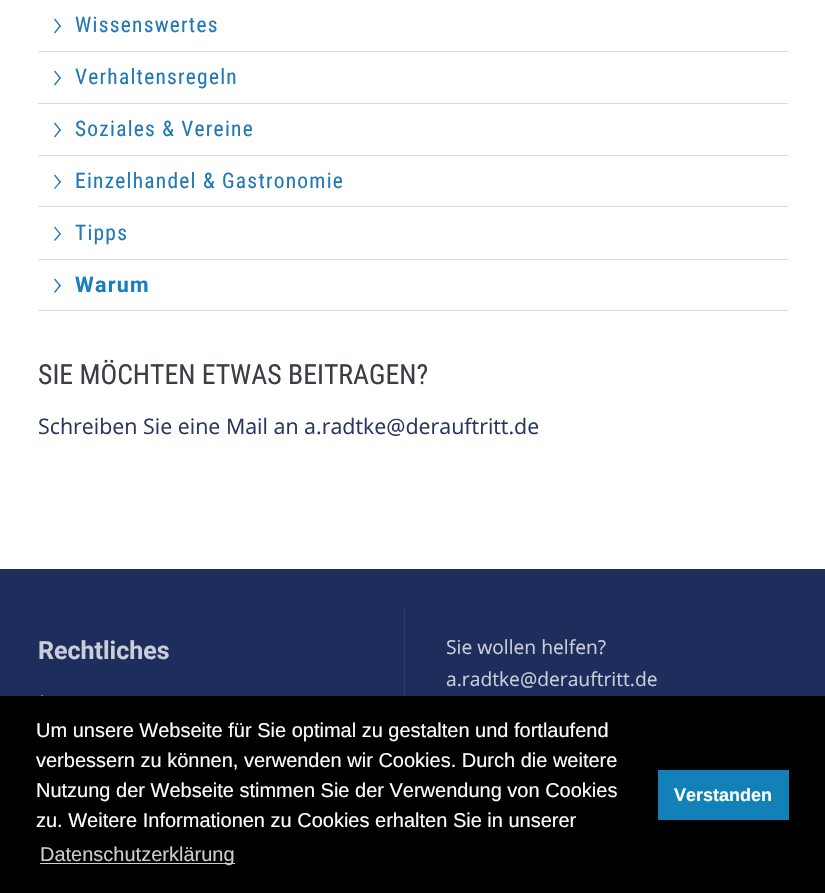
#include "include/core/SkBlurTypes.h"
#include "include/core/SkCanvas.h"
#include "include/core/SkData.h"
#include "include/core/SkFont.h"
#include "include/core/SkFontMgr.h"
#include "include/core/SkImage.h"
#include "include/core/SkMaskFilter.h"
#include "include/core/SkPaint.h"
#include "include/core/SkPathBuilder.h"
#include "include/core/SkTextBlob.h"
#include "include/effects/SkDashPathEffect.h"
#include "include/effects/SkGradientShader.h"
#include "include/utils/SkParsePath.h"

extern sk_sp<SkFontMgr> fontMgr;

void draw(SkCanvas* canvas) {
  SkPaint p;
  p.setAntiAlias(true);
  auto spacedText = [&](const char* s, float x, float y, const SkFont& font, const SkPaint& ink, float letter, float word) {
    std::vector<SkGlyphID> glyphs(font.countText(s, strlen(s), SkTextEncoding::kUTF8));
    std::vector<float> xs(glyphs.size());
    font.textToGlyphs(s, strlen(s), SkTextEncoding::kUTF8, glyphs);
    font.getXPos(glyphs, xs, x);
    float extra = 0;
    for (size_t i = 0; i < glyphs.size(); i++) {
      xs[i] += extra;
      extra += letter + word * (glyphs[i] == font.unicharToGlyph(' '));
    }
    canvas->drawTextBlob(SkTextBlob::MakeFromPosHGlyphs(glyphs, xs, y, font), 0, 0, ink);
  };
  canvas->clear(SK_ColorWHITE);
  p.setColor(SkColorSetRGB(221, 221, 221));
  canvas->drawRect(SkRect::MakeLTRB(38, 51, 788, 52), p);
  p.setColor(SkColorSetRGB(33, 120, 179));
  canvas->drawPath(SkPathBuilder().moveTo(55, 18.5f).lineTo(61, 26).lineTo(60, 27).lineTo(54, 19.5f).close().detach(), p);
  canvas->drawPath(SkPathBuilder().moveTo(60, 25).lineTo(61, 26).lineTo(55, 33.5f).lineTo(54, 32.5f).close().detach(), p);
  p.setColor(SkColorSetRGB(221, 221, 221));
  canvas->drawRect(SkRect::MakeLTRB(38, 103, 788, 104), p);
  p.setColor(SkColorSetRGB(33, 120, 179));
  canvas->drawPath(SkPathBuilder().moveTo(55, 70.5f).lineTo(61, 78).lineTo(60, 79).lineTo(54, 71.5f).close().detach(), p);
  canvas->drawPath(SkPathBuilder().moveTo(60, 77).lineTo(61, 78).lineTo(55, 85.5f).lineTo(54, 84.5f).close().detach(), p);
  p.setColor(SkColorSetRGB(221, 221, 221));
  canvas->drawRect(SkRect::MakeLTRB(38, 155, 788, 156), p);
  p.setColor(SkColorSetRGB(33, 120, 179));
  canvas->drawPath(SkPathBuilder().moveTo(55, 122.5f).lineTo(61, 130).lineTo(60, 131).lineTo(54, 123.5f).close().detach(), p);
  canvas->drawPath(SkPathBuilder().moveTo(60, 129).lineTo(61, 130).lineTo(55, 137.5f).lineTo(54, 136.5f).close().detach(), p);
  p.setColor(SkColorSetRGB(221, 221, 221));
  canvas->drawRect(SkRect::MakeLTRB(38, 206, 788, 207), p);
  p.setColor(SkColorSetRGB(33, 120, 179));
  canvas->drawPath(SkPathBuilder().moveTo(55, 174.5f).lineTo(61, 182).lineTo(60, 183).lineTo(54, 175.5f).close().detach(), p);
  canvas->drawPath(SkPathBuilder().moveTo(60, 181).lineTo(61, 182).lineTo(55, 189).lineTo(54, 188.5f).close().detach(), p);
  p.setColor(SkColorSetRGB(221, 221, 221));
  canvas->drawRect(SkRect::MakeLTRB(38, 259, 788, 260), p);
  p.setColor(SkColorSetRGB(33, 120, 179));
  canvas->drawPath(SkPathBuilder().moveTo(55, 226.5f).lineTo(61, 234).lineTo(60, 234.5f).lineTo(54, 227.5f).close().detach(), p);
  canvas->drawPath(SkPathBuilder().moveTo(60, 233).lineTo(61, 234).lineTo(55, 241).lineTo(54, 240).close().detach(), p);
  p.setColor(SkColorSetRGB(221, 221, 221));
  canvas->drawRect(SkRect::MakeLTRB(38, 310, 788, 311), p);
  p.setColor(SkColorSetRGB(33, 120, 179));
  canvas->drawPath(SkPathBuilder().moveTo(55, 278.5f).lineTo(61, 285.5f).lineTo(60, 286.5f).lineTo(54, 279.5f).close().detach(), p);
  canvas->drawPath(SkPathBuilder().moveTo(60, 284.5f).lineTo(61, 285.5f).lineTo(55, 293).lineTo(54, 292).close().detach(), p);
  p.setColor(SkColorSetRGB(29, 45, 92));
  canvas->drawRect(SkRect::MakeLTRB(0, 569, 825, 696), p);
  p.setColor(SkColorSetRGB(38, 59, 118));
  canvas->drawRect(SkRect::MakeLTRB(404, 606, 405, 696), p);
  p.setColor(SkColorSetRGB(203, 206, 217));
  canvas->drawPath(SkPathBuilder().moveTo(42, 695).lineTo(47.5f, 702).lineTo(46.5f, 702.5f).lineTo(41, 696).close().detach(), p);
  p.setColor(SK_ColorBLACK);
  canvas->drawRect(SkRect::MakeLTRB(0, 696, 825, 893), p);
  p.setColor(SkColorSetRGB(204, 204, 204));
  canvas->drawRect(SkRect::MakeLTRB(40, 863, 235, 864), p);
  p.setColor(SkColorSetRGB(18, 129, 184));
  canvas->drawRect(SkRect::MakeLTRB(658, 770, 789, 820), p);
  SkFont font1(fontMgr->matchFamilyStyle("Roboto Condensed", SkFontStyle::Normal()), 21.4f);
  font1.setSubpixel(true);
  p.setColor(SkColorSetRGB(33, 120, 179));
  spacedText("Wissenswertes", 75, 32, font1, p, 1.25f, 0);
  spacedText("Verhaltensregeln", 75, 84, font1, p, 1.25f, 0);
  spacedText("Soziales & Vereine", 75, 136, font1, p, 1.25f, 0);
  spacedText("Einzelhandel & Gastronomie", 75, 188, font1, p, 1.25f, 0);
  spacedText("Tipps", 75, 240, font1, p, 1.25f, 0);
  SkFont font2(fontMgr->matchFamilyStyle("Roboto", SkFontStyle::Bold()), 21.4f);
  font2.setSubpixel(true);
  p.setColor(SkColorSetRGB(24, 125, 193));
  spacedText("Warum", 75, 292, font2, p, 1.25f, 0);
  SkFont font3(fontMgr->matchFamilyStyle("Roboto Condensed", SkFontStyle::Normal()), 27.75f);
  font3.setSubpixel(true);
  p.setColor(SkColorSetRGB(59, 62, 67));
  canvas->drawString("SIE MÖCHTEN ETWAS BEITRAGEN?", 38, 384, font3, p);
  SkFont font4(fontMgr->matchFamilyStyle("Open Sans", SkFontStyle::Normal()), 21.4f);
  font4.setSubpixel(true);
  p.setColor(SkColorSetRGB(41, 54, 93));
  canvas->drawString("Schreiben Sie eine Mail an a.radtke@derauftritt.de", 38, 434, font4, p);
  SkFont font5(fontMgr->matchFamilyStyle("Roboto", SkFontStyle::Bold()), 25);
  font5.setSubpixel(true);
  p.setColor(SkColorSetRGB(203, 206, 217));
  canvas->drawString("Rechtliches", 38, 659, font5, p);
  SkFont font6(fontMgr->matchFamilyStyle("Open Sans", SkFontStyle::Normal()), 19.25f);
  font6.setSubpixel(true);
  canvas->drawString("Sie wollen helfen?", 446, 654, font6, p);
  canvas->drawString("a.radtke@derauftritt.de", 446, 686, font6, p);
  SkFont font7(fontMgr->matchFamilyStyle("Liberation Sans", SkFontStyle::Normal()), 20);
  font7.setSubpixel(true);
  p.setColor(SK_ColorWHITE);
  canvas->drawString("Um unsere Webseite für Sie optimal zu gestalten und fortlaufend", 36, 737, font7, p);
  canvas->drawString("verbessern zu können, verwenden wir Cookies. Durch die weitere", 36, 767, font7, p);
  canvas->drawString("Nutzung der Webseite stimmen Sie der Verwendung von Cookies", 36, 797, font7, p);
  canvas->drawString("zu. Weitere Informationen zu Cookies erhalten Sie in unserer", 36, 827, font7, p);
  p.setColor(SkColorSetRGB(204, 204, 204));
  canvas->drawString("Datenschutzerklärung", 40, 861, font7, p);
  SkFont font8(fontMgr->matchFamilyStyle("Liberation Sans", SkFontStyle::Bold()), 18);
  font8.setSubpixel(true);
  p.setColor(SK_ColorWHITE);
  canvas->drawString("Verstanden", 674, 801, font8, p);
}
